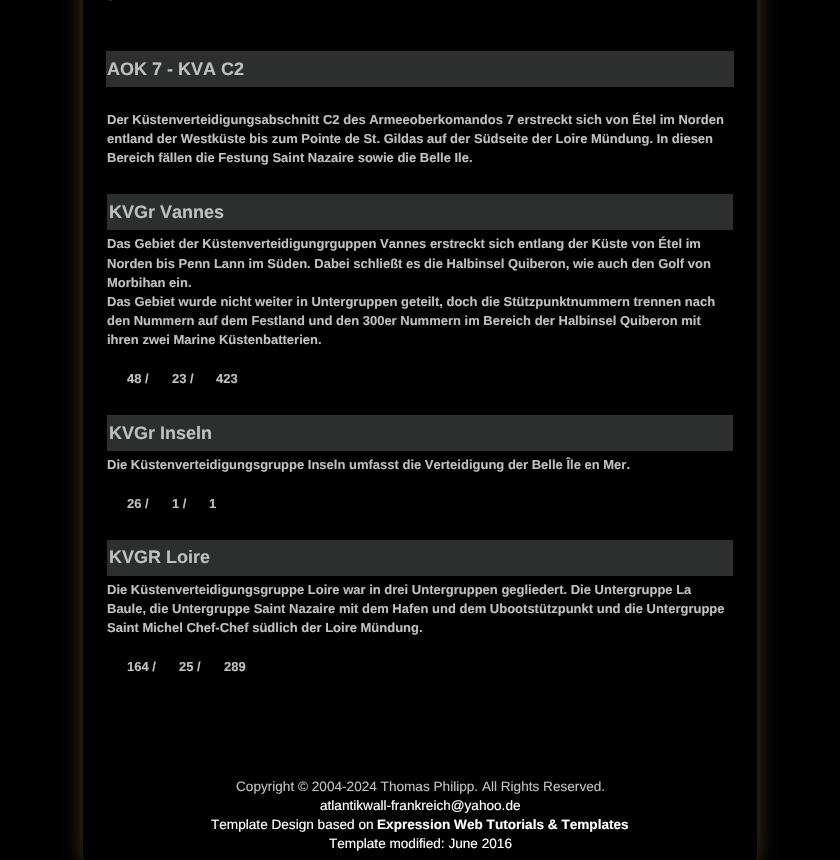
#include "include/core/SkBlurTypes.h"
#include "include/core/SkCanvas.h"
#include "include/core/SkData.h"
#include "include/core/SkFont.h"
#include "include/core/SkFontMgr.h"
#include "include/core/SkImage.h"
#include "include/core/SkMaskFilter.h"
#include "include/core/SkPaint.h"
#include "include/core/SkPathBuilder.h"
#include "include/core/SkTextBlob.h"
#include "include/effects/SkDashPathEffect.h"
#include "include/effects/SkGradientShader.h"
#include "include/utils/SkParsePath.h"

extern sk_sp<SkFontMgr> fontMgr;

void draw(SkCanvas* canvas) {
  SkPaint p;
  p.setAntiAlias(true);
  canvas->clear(SK_ColorBLACK);
  p.setColor(SkColorSetRGB(69, 56, 35));
  p.setMaskFilter(SkMaskFilter::MakeBlur(kNormal_SkBlurStyle, 10));
  canvas->drawRoundRect(SkRect::MakeLTRB(83, -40, 757, 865), 10, 10, p);
  p.setMaskFilter(nullptr);
  p.setColor(SK_ColorBLACK);
  canvas->drawRoundRect(SkRect::MakeLTRB(83.5f, -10.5f, 756.5f, 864.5f), 9.5f, 9.5f, p);
  p.setStyle(SkPaint::kStroke_Style);
  p.setStrokeWidth(1);
  canvas->drawRoundRect(SkRect::MakeLTRB(83.5f, -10.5f, 756.5f, 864.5f), 9.5f, 9.5f, p);
  p.setStyle(SkPaint::kFill_Style);
  p.setColor(SkColorSetRGB(45, 46, 46));
  canvas->drawRoundRect(SkRect::MakeLTRB(108, -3, 113, 1), 2.5f, 2.5f, p);
  canvas->drawRect(SkRect::MakeLTRB(106, 51, 734, 87), p);
  canvas->drawRect(SkRect::MakeLTRB(107, 194, 733, 230), p);
  canvas->drawRect(SkRect::MakeLTRB(107, 415, 733, 451), p);
  canvas->drawRect(SkRect::MakeLTRB(107, 540, 733, 576), p);
  SkFont font1(fontMgr->matchFamilyStyle("Liberation Sans", SkFontStyle::Bold()), 18);
  font1.setSubpixel(true);
  p.setColor(SkColorSetRGB(192, 192, 192));
  canvas->drawString("AOK 7 - KVA C2", 107, 75, font1, p);
  SkFont font2(fontMgr->matchFamilyStyle("Liberation Sans", SkFontStyle::Bold()), 13);
  font2.setSubpixel(true);
  canvas->drawString("Der Küstenverteidigungsabschnitt C2 des Armeeoberkomandos 7 erstreckt sich von Étel im Norden", 107, 124, font2, p);
  canvas->drawString("entland der Westküste bis zum Pointe de St. Gildas auf der Südseite der Loire Mündung. In diesen", 107, 143, font2, p);
  canvas->drawString("Bereich fällen die Festung Saint Nazaire sowie die Belle Ile.", 107, 162, font2, p);
  canvas->drawString("KVGr Vannes", 109, 218, font1, p);
  canvas->drawString("Das Gebiet der Küstenverteidigungrguppen Vannes erstreckt sich entlang der Küste von Étel im", 107, 248, font2, p);
  canvas->drawString("Norden bis Penn Lann im Süden. Dabei schließt es die Halbinsel Quiberon, wie auch den Golf von", 107, 268, font2, p);
  canvas->drawString("Morbihan ein.", 107, 287, font2, p);
  canvas->drawString("Das Gebiet wurde nicht weiter in Untergruppen geteilt, doch die Stützpunktnummern trennen nach", 107, 306, font2, p);
  canvas->drawString("den Nummern auf dem Festland und den 300er Nummern im Bereich der Halbinsel Quiberon mit", 107, 325, font2, p);
  canvas->drawString("ihren zwei Marine Küstenbatterien.", 107, 344, font2, p);
  canvas->drawString("48 /", 127, 383, font2, p);
  canvas->drawString("23 /", 172, 383, font2, p);
  canvas->drawString("423", 216, 383, font2, p);
  canvas->drawString("KVGr Inseln", 109, 439, font1, p);
  canvas->drawString("Die Küstenverteidigungsgruppe Inseln umfasst die Verteidigung der Belle Île en Mer.", 107, 469, font2, p);
  canvas->drawString("26 /", 127, 508, font2, p);
  canvas->drawString("1 /", 172, 508, font2, p);
  canvas->drawString("1", 209, 508, font2, p);
  canvas->drawString("KVGR Loire", 109, 563, font1, p);
  canvas->drawString("Die Küstenverteidigungsgruppe Loire war in drei Untergruppen gegliedert. Die Untergruppe La", 107, 594, font2, p);
  canvas->drawString("Baule, die Untergruppe Saint Nazaire mit dem Hafen und dem Ubootstützpunkt und die Untergruppe", 107, 613, font2, p);
  canvas->drawString("Saint Michel Chef-Chef südlich der Loire Mündung.", 107, 632, font2, p);
  canvas->drawString("164 /", 127, 671, font2, p);
  canvas->drawString("25 /", 179, 671, font2, p);
  canvas->drawString("289", 224, 671, font2, p);
  SkFont font3(fontMgr->matchFamilyStyle("Liberation Sans", SkFontStyle::Normal()), 13.6f);
  font3.setSubpixel(true);
  canvas->drawString("Copyright © 2004-2024 Thomas Philipp. All Rights Reserved.", 236, 791, font3, p);
  p.setColor(SK_ColorWHITE);
  canvas->drawString("atlantikwall-frankreich@yahoo.de", 320, 810, font3, p);
  canvas->drawString("Template Design based on", 211, 829, font3, p);
  SkFont font4(fontMgr->matchFamilyStyle("Liberation Sans", SkFontStyle::Bold()), 13.6f);
  font4.setSubpixel(true);
  canvas->drawString("Expression Web Tutorials & Templates", 377, 829, font4, p);
  canvas->drawString("Template modified: June 2016", 329, 848, font3, p);
}
